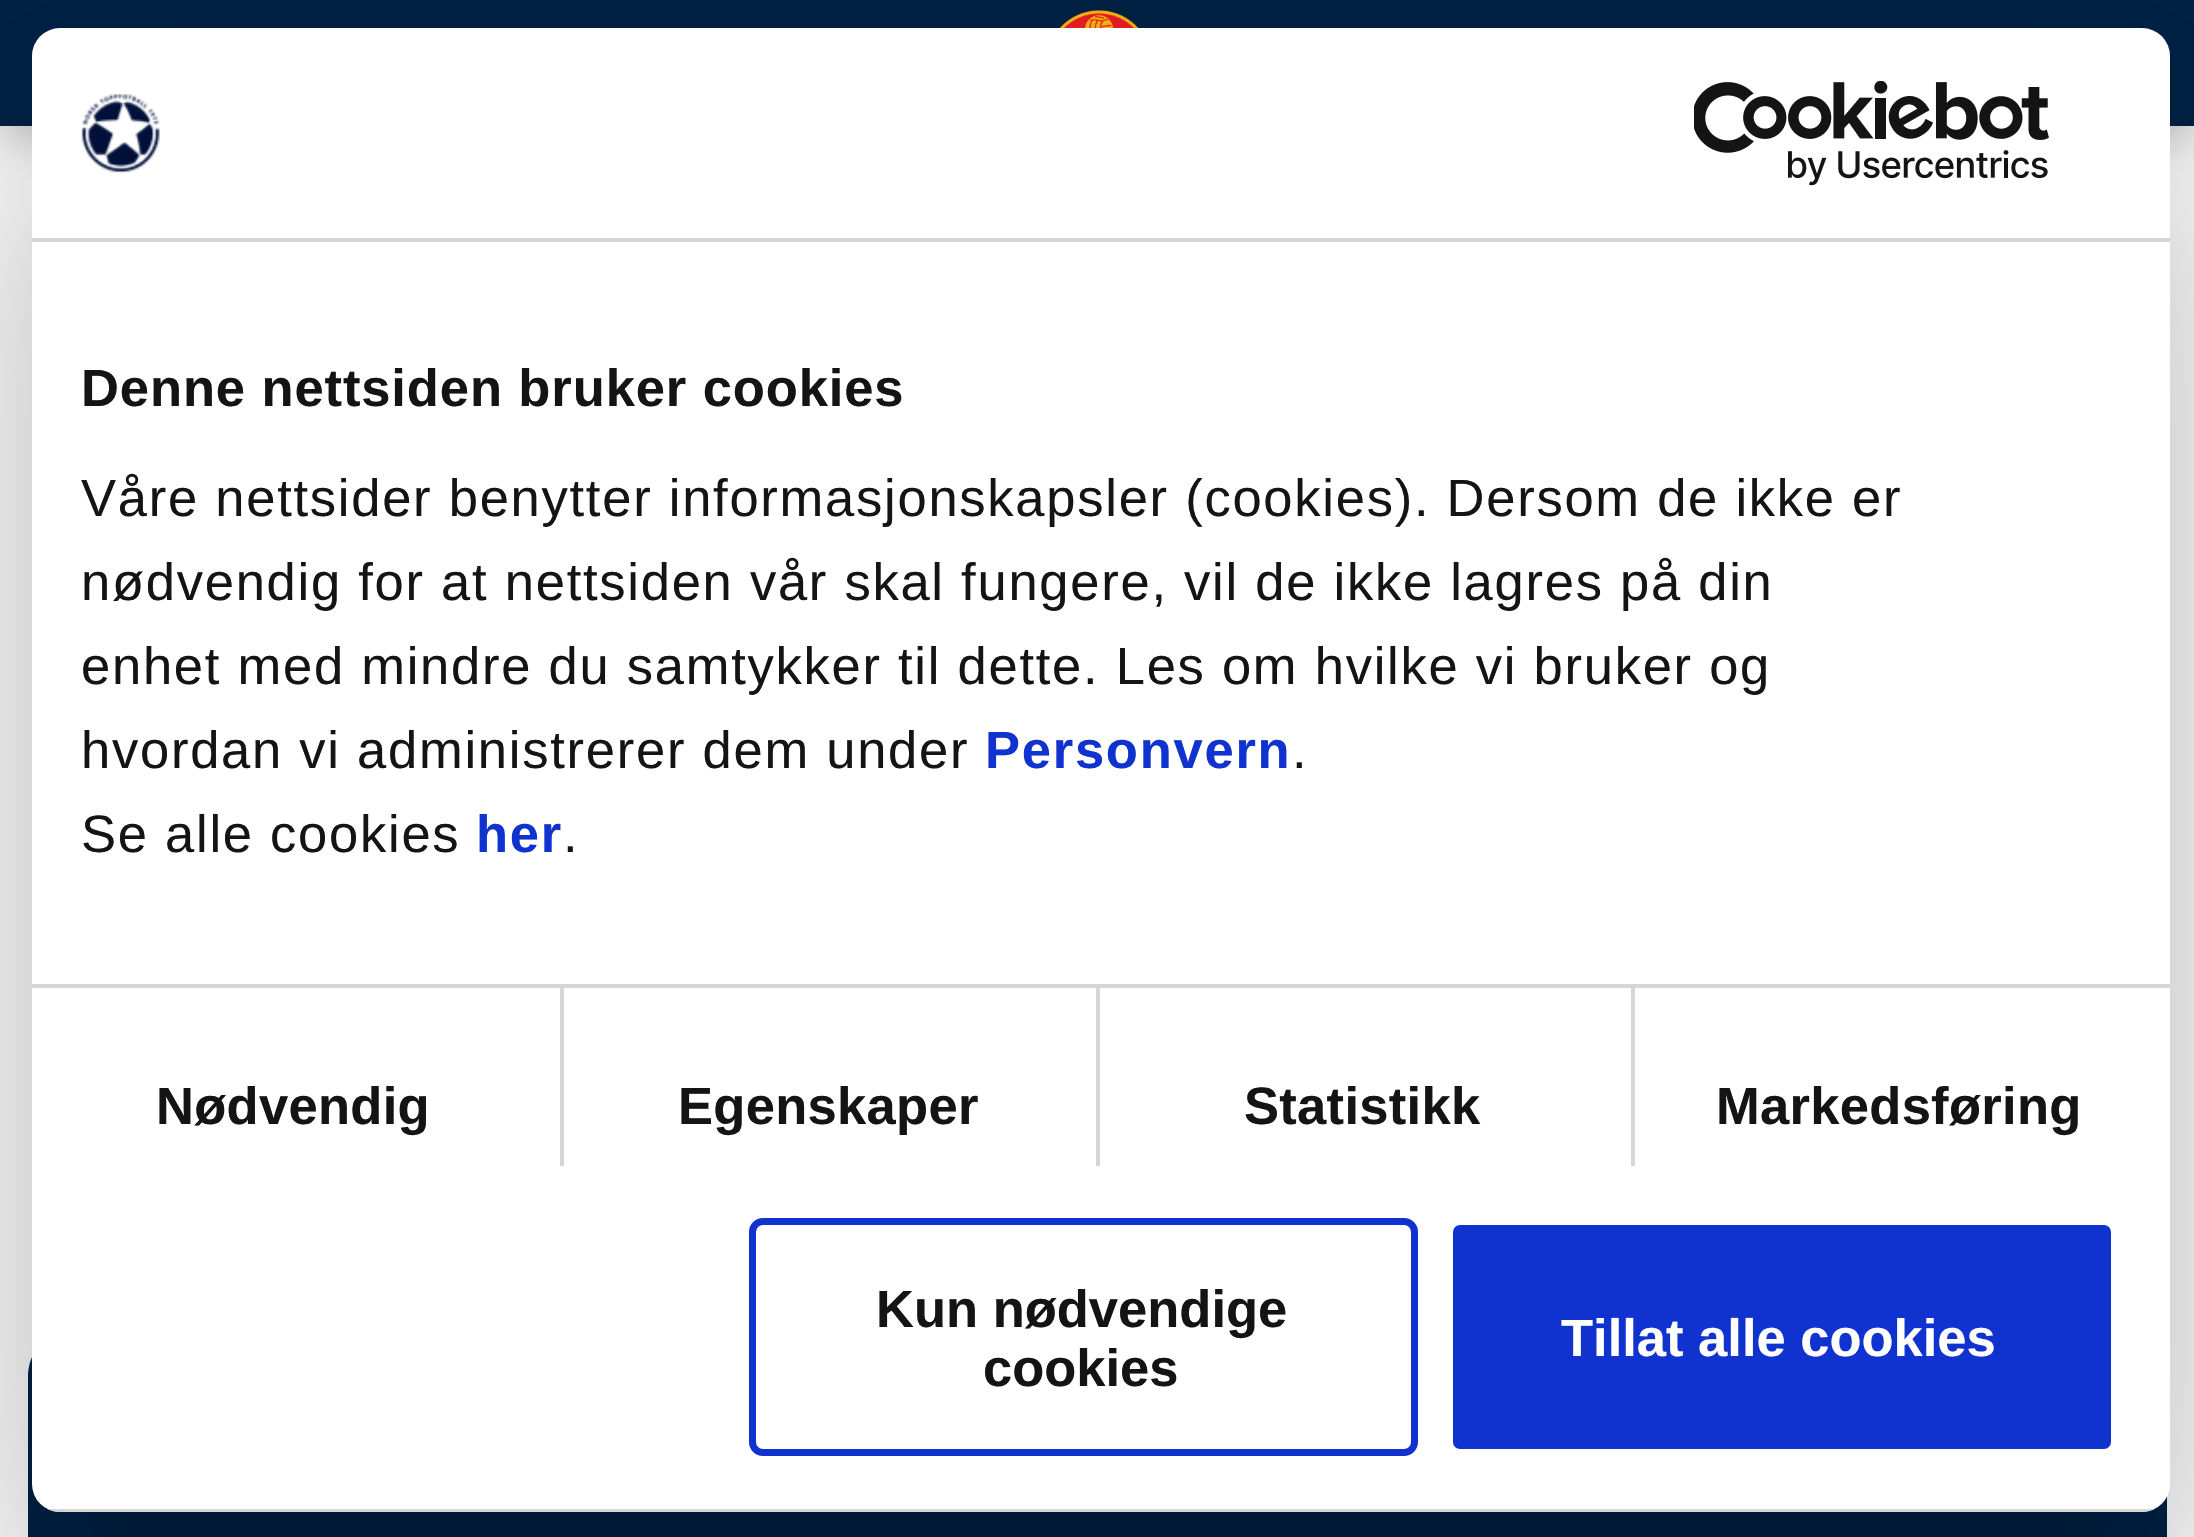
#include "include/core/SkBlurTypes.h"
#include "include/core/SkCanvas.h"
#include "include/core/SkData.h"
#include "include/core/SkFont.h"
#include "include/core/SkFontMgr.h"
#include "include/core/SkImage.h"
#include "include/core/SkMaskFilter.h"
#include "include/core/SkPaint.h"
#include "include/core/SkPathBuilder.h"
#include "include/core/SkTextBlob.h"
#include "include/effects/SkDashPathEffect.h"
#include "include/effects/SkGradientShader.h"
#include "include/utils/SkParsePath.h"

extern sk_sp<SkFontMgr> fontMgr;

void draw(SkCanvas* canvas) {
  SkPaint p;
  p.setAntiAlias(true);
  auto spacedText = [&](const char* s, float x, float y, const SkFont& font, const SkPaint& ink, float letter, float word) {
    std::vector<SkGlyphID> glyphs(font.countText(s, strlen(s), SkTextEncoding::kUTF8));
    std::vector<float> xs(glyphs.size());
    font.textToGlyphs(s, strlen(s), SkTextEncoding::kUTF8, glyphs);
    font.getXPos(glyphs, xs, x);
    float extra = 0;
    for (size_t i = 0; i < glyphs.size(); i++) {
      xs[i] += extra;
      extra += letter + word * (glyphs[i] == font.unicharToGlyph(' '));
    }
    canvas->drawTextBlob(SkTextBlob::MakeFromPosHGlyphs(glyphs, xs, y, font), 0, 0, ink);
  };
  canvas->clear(SK_ColorWHITE);
  p.setColor(SkColorSetARGB(64, 0, 0, 0));
  p.setMaskFilter(SkMaskFilter::MakeBlur(kNormal_SkBlurStyle, 24.5f));
  canvas->drawRect(SkRect::MakeLTRB(0, 14, 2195, 140), p);
  p.setMaskFilter(nullptr);
  p.setColor(SkColorSetRGB(0, 33, 69));
  canvas->drawRect(SkRect::MakeLTRB(0, 0, 2194, 126), p);
  canvas->drawImageRect(SkImages::DeferredFromEncodedData(SkData::MakeFromFileName("images/1.png")), SkRect::MakeLTRB(1059, 10, 1139, 28), SkSamplingOptions());
  canvas->drawPath(SkPathBuilder().moveTo(74, 1330).lineTo(2121, 1330).cubicTo(2146.5f, 1330, 2167, 1350.5f, 2167, 1376).lineTo(2167, 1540).lineTo(28, 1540).lineTo(28, 1376).cubicTo(28, 1350.5f, 48.5f, 1330, 74, 1330).close().detach(), p);
  canvas->save();
  canvas->clipPath(SkPathBuilder(SkPathFillType::kEvenOdd).moveTo(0, 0).lineTo(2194, 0).lineTo(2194, 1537).lineTo(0, 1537).close().moveTo(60, 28).lineTo(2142, 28).cubicTo(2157.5f, 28, 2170, 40.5f, 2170, 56).lineTo(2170, 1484).cubicTo(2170, 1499.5f, 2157.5f, 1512, 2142, 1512).lineTo(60, 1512).cubicTo(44.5f, 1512, 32, 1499.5f, 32, 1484).lineTo(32, 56).cubicTo(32, 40.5f, 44.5f, 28, 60, 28).close().detach(), true);
  p.setColor(SkColorSetARGB(77, 0, 0, 0));
  p.setMaskFilter(SkMaskFilter::MakeBlur(kNormal_SkBlurStyle, 119));
  canvas->drawRoundRect(SkRect::MakeLTRB(32, 140, 2170, 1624), 28, 28, p);
  p.setMaskFilter(nullptr);
  canvas->restore();
  p.setColor(SK_ColorWHITE);
  canvas->drawRoundRect(SkRect::MakeLTRB(32, 28, 2170, 1512), 28, 28, p);
  p.setColor(SkColorSetRGB(214, 214, 214));
  canvas->drawRect(SkRect::MakeLTRB(32, 238, 2170, 242), p);
  canvas->drawImageRect(SkImages::DeferredFromEncodedData(SkData::MakeFromFileName("images/2.png")), SkRect::MakeLTRB(81, 94, 160, 173), SkSamplingOptions());
  canvas->drawImageRect(SkImages::DeferredFromEncodedData(SkData::MakeFromFileName("images/3.png")), SkRect::MakeLTRB(1694, 81, 2049, 186), SkSamplingOptions());
  canvas->drawRect(SkRect::MakeLTRB(560, 987, 564, 1166), p);
  canvas->drawRect(SkRect::MakeLTRB(1096, 987, 1100, 1166), p);
  canvas->drawRect(SkRect::MakeLTRB(1631, 987, 1635, 1166), p);
  canvas->drawRect(SkRect::MakeLTRB(32, 984, 2170, 988), p);
  canvas->save();
  canvas->clipPath(SkPathBuilder().moveTo(60, 28).lineTo(2142, 28).cubicTo(2157.5f, 28, 2170, 40.5f, 2170, 56).lineTo(2170, 1484).cubicTo(2170, 1499.5f, 2157.5f, 1512, 2142, 1512).lineTo(60, 1512).cubicTo(44.5f, 1512, 32, 1499.5f, 32, 1484).lineTo(32, 56).cubicTo(32, 40.5f, 44.5f, 28, 60, 28).close().detach(), true);
  canvas->drawRect(SkRect::MakeLTRB(47, 1509, 2155, 1512), p);
  canvas->restore();
  p.setStyle(SkPaint::kStroke_Style);
  p.setStrokeWidth(7);
  p.setColor(SkColorSetRGB(16, 50, 207));
  canvas->drawRoundRect(SkRect::MakeLTRB(752.5f, 1221.5f, 1414.5f, 1452.5f), 10.5f, 10.5f, p);
  p.setStyle(SkPaint::kFill_Style);
  canvas->drawRoundRect(SkRect::MakeLTRB(1449.5f, 1221.5f, 2114.5f, 1452.5f), 10.5f, 10.5f, p);
  p.setStyle(SkPaint::kStroke_Style);
  p.setColor(SK_ColorWHITE);
  canvas->drawRoundRect(SkRect::MakeLTRB(1449.5f, 1221.5f, 2114.5f, 1452.5f), 10.5f, 10.5f, p);
  SkFont font1(fontMgr->matchFamilyStyle("Liberation Sans", SkFontStyle::Bold()), 52.5f);
  font1.setSubpixel(true);
  p.setStyle(SkPaint::kFill_Style);
  p.setColor(SkColorSetRGB(20, 20, 20));
  spacedText("Denne nettsiden bruker cookies", 81, 406, font1, p, 0.9f, 0);
  SkFont font2(fontMgr->matchFamilyStyle("Liberation Sans", SkFontStyle::Normal()), 52.5f);
  font2.setSubpixel(true);
  spacedText("Våre nettsider benytter informasjonskapsler (cookies). Dersom de ikke er", 81, 516, font2, p, 1.75f, 0);
  spacedText("nødvendig for at nettsiden vår skal fungere, vil de ikke lagres på din", 81, 600, font2, p, 1.75f, 0);
  spacedText("enhet med mindre du samtykker til dette. Les om hvilke vi bruker og", 81, 684, font2, p, 1.75f, 0);
  spacedText("hvordan vi administrerer dem under", 81, 768, font2, p, 1.75f, 0);
  p.setColor(SkColorSetRGB(16, 50, 207));
  spacedText("Personvern", 985, 768, font1, p, 1.75f, 0);
  p.setColor(SkColorSetRGB(20, 20, 20));
  spacedText(".", 1292, 768, font2, p, 1.75f, 0);
  spacedText("Se alle cookies", 81, 852, font2, p, 1.75f, 0);
  p.setColor(SkColorSetRGB(16, 50, 207));
  spacedText("her", 476, 852, font1, p, 1.75f, 0);
  p.setColor(SkColorSetRGB(20, 20, 20));
  spacedText(".", 563, 852, font2, p, 1.75f, 0);
  spacedText("Nødvendig", 156, 1124, font1, p, 0.3f, 0);
  spacedText("Egenskaper", 678, 1124, font1, p, 0.3f, 0);
  spacedText("Statistikk", 1244, 1124, font1, p, 0.3f, 0);
  spacedText("Markedsføring", 1716, 1124, font1, p, 0.3f, 0);
  canvas->drawString("Kun nødvendige", 876, 1327, font1, p);
  canvas->drawString("cookies", 983, 1386, font1, p);
  p.setColor(SK_ColorWHITE);
  canvas->drawString("Tillat alle cookies", 1561, 1356, font1, p);
}
